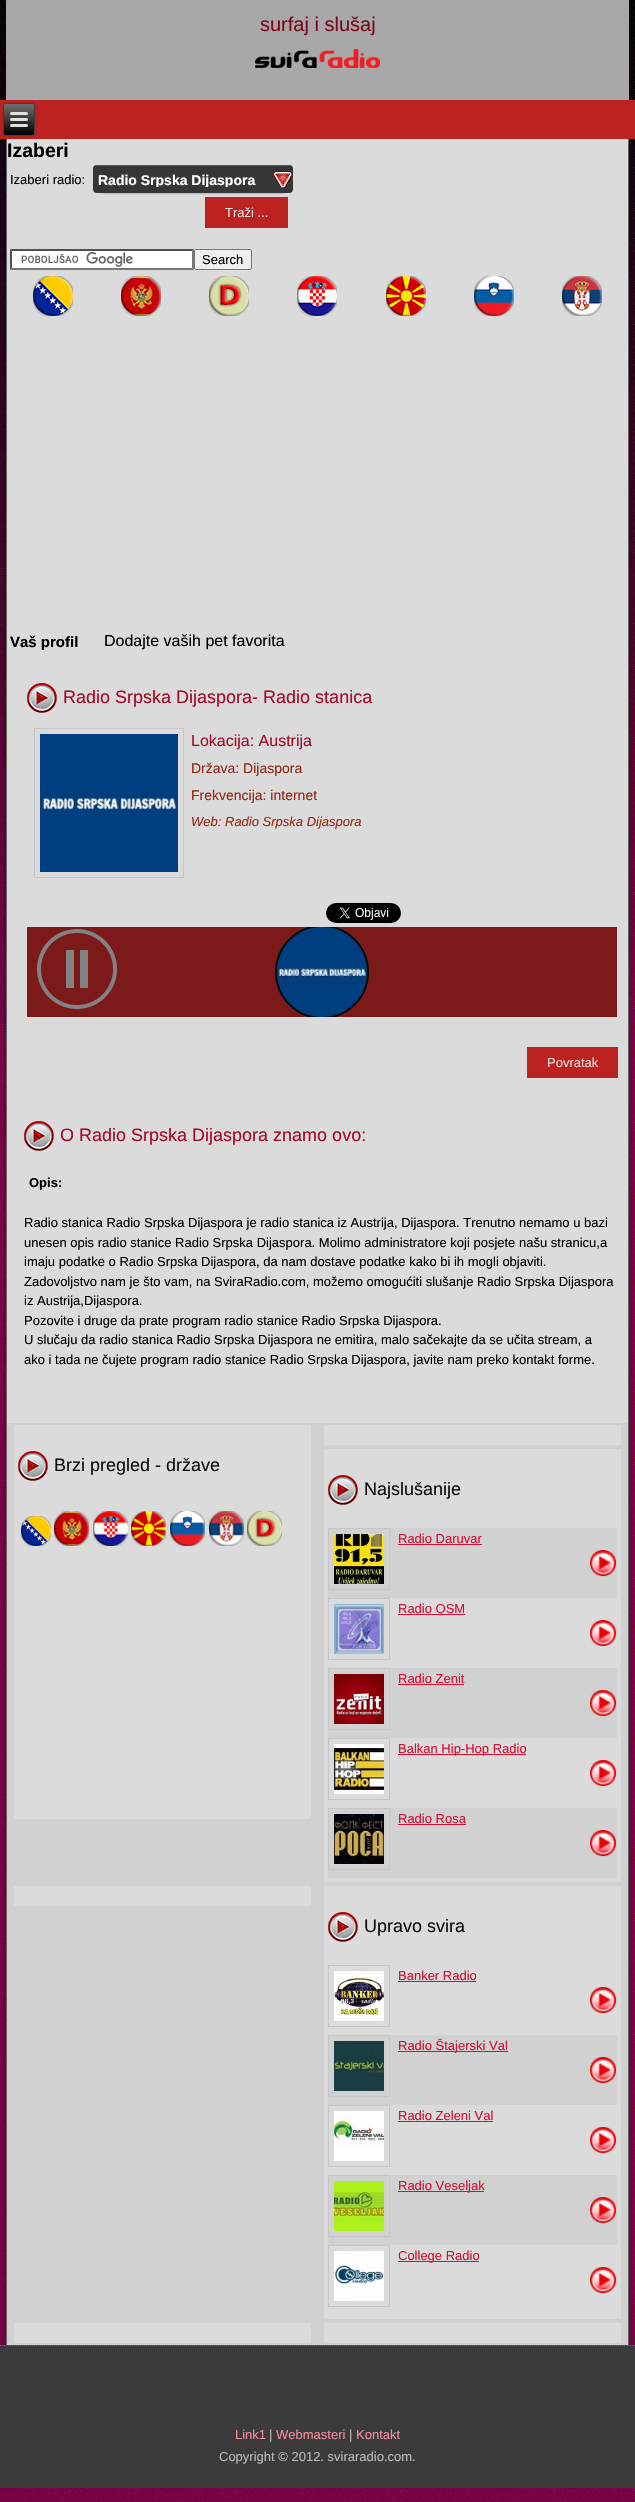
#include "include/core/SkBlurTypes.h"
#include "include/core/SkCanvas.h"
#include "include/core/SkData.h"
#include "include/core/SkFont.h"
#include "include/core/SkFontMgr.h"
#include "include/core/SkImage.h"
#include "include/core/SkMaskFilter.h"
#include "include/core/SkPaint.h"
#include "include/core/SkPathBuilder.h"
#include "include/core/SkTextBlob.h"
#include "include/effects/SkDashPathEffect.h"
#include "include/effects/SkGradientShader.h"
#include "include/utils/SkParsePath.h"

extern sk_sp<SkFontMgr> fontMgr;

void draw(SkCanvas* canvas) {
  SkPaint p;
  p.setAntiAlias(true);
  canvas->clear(SK_ColorWHITE);
  canvas->drawImageRect(SkImages::DeferredFromEncodedData(SkData::MakeFromFileName("images/1.png")), SkRect::MakeLTRB(0, 0, 635, 2502), SkSamplingOptions());
  p.setColor(SkColorSetRGB(168, 168, 168));
  canvas->drawRect(SkRect::MakeLTRB(6, 0, 629, 100), p);
  canvas->drawImageRect(SkImages::DeferredFromEncodedData(SkData::MakeFromFileName("images/2.png")), SkRect::MakeLTRB(255, 49, 380, 68), SkSamplingOptions());
  p.setColor(SkColorSetARGB(38, 0, 0, 0));
  p.setMaskFilter(SkMaskFilter::MakeBlur(kNormal_SkBlurStyle, 1.5f));
  canvas->drawRect(SkRect::MakeLTRB(4, 137, 631, 2347), p);
  p.setMaskFilter(nullptr);
  p.setColor(SkColorSetRGB(188, 34, 32));
  canvas->drawRect(SkRect::MakeLTRB(0, 100, 635, 139), p);
  p.setColor(SkColorSetRGB(220, 219, 219));
  canvas->drawRect(SkRect::MakeLTRB(7, 139, 628, 1423), p);
  p.setColor(SkColorSetRGB(99, 99, 99));
  canvas->drawRect(SkRect::MakeLTRB(6, 139, 7, 2345), p);
  p.setColor(SkColorSetARGB(51, 0, 0, 0));
  p.setMaskFilter(SkMaskFilter::MakeBlur(kNormal_SkBlurStyle, 1.5f));
  canvas->drawRoundRect(SkRect::MakeLTRB(3, 103, 35, 136), 3, 3, p);
  p.setMaskFilter(nullptr);
  canvas->save();
  canvas->clipPath(SkPathBuilder().moveTo(6, 103).lineTo(32, 103).cubicTo(33.5f, 103, 35, 104.5f, 35, 106).lineTo(35, 133).cubicTo(35, 134.5f, 33.5f, 136, 32, 136).lineTo(6, 136).cubicTo(4.5f, 136, 3, 134.5f, 3, 133).lineTo(3, 106).cubicTo(3, 104.5f, 4.5f, 103, 6, 103).close().detach(), true);
  {
    const SkColor colors[] = {SkColorSetRGB(112, 112, 112), SK_ColorBLACK};
    const float stops[] = {0, 1};
    const SkPoint ends[] = {{19, 104}, {19, 135}};
    p.setShader(SkGradientShader::MakeLinear(ends, colors, stops, 2, SkTileMode::kClamp));
    p.setAlpha(255);
  }
  canvas->drawRect(SkRect::MakeLTRB(3, 104, 35, 135), p);
  canvas->restore();
  p.setStyle(SkPaint::kStroke_Style);
  p.setStrokeWidth(1);
  p.setShader(nullptr);
  p.setColor(SkColorSetRGB(64, 64, 64));
  canvas->drawRoundRect(SkRect::MakeLTRB(3.5f, 103.5f, 34.5f, 135.5f), 2.5f, 2.5f, p);
  p.setStyle(SkPaint::kFill_Style);
  p.setColor(SkColorSetRGB(224, 224, 224));
  canvas->drawRoundRect(SkRect::MakeLTRB(10, 112, 28, 115), 1.5f, 1.5f, p);
  canvas->drawRoundRect(SkRect::MakeLTRB(10, 118, 28, 121), 1.5f, 1.5f, p);
  canvas->drawRoundRect(SkRect::MakeLTRB(10, 124, 28, 127), 1.5f, 1.5f, p);
  p.setColor(SkColorSetRGB(99, 99, 99));
  canvas->drawRect(SkRect::MakeLTRB(628, 139, 629, 2345), p);
  p.setColor(SK_ColorBLACK);
  p.setMaskFilter(SkMaskFilter::MakeBlur(kNormal_SkBlurStyle, 1.5f));
  canvas->drawRect(SkRect::MakeLTRB(102, 182, 284, 192), p);
  p.setMaskFilter(nullptr);
  p.setColor(SkColorSetRGB(54, 54, 54));
  canvas->drawRoundRect(SkRect::MakeLTRB(93, 165, 293, 193), 4, 4, p);
  canvas->drawImageRect(SkImages::DeferredFromEncodedData(SkData::MakeFromFileName("images/3.png")), SkRect::MakeLTRB(274, 171, 292, 188), SkSamplingOptions());
  p.setColor(SkColorSetRGB(87, 87, 87));
  canvas->drawRect(SkRect::MakeLTRB(95, 165, 291, 166), p);
  p.setColor(SkColorSetRGB(188, 34, 32));
  canvas->drawRect(SkRect::MakeLTRB(205, 197, 288, 228), p);
  p.setColor(SK_ColorWHITE);
  canvas->drawRect(SkRect::MakeLTRB(10, 249, 194, 270), p);
  canvas->drawImageRect(SkImages::DeferredFromEncodedData(SkData::MakeFromFileName("images/4.png")), SkRect::MakeLTRB(21, 252, 133, 267), SkSamplingOptions());
  p.setColor(SkColorSetRGB(79, 79, 79));
  canvas->drawPath(SkPathBuilder().moveTo(10, 249).lineTo(194, 249).lineTo(192, 251).lineTo(12, 251).close().detach(), p);
  p.setColor(SkColorSetRGB(118, 118, 118));
  canvas->drawPath(SkPathBuilder().moveTo(194, 249).lineTo(194, 270).lineTo(192, 268).lineTo(192, 251).close().detach(), p);
  canvas->drawPath(SkPathBuilder().moveTo(194, 270).lineTo(10, 270).lineTo(12, 268).lineTo(192, 268).close().detach(), p);
  p.setColor(SkColorSetRGB(79, 79, 79));
  canvas->drawPath(SkPathBuilder().moveTo(10, 270).lineTo(10, 249).lineTo(12, 251).lineTo(12, 268).close().detach(), p);
  p.setColor(SkColorSetRGB(239, 239, 239));
  canvas->drawRoundRect(SkRect::MakeLTRB(194.5f, 249.5f, 251.5f, 269.5f), 1.5f, 1.5f, p);
  p.setStyle(SkPaint::kStroke_Style);
  p.setColor(SkColorSetRGB(118, 118, 118));
  canvas->drawRoundRect(SkRect::MakeLTRB(194.5f, 249.5f, 251.5f, 269.5f), 1.5f, 1.5f, p);
  canvas->drawImageRect(SkImages::DeferredFromEncodedData(SkData::MakeFromFileName("images/5.png")), SkRect::MakeLTRB(33, 276, 73, 316), SkSamplingOptions());
  canvas->drawImageRect(SkImages::DeferredFromEncodedData(SkData::MakeFromFileName("images/6.png")), SkRect::MakeLTRB(121, 276, 161, 316), SkSamplingOptions());
  canvas->drawImageRect(SkImages::DeferredFromEncodedData(SkData::MakeFromFileName("images/7.png")), SkRect::MakeLTRB(209, 276, 249, 316), SkSamplingOptions());
  canvas->drawImageRect(SkImages::DeferredFromEncodedData(SkData::MakeFromFileName("images/8.png")), SkRect::MakeLTRB(297, 276, 337, 316), SkSamplingOptions());
  canvas->drawImageRect(SkImages::DeferredFromEncodedData(SkData::MakeFromFileName("images/9.png")), SkRect::MakeLTRB(386, 276, 426, 316), SkSamplingOptions());
  canvas->drawImageRect(SkImages::DeferredFromEncodedData(SkData::MakeFromFileName("images/10.png")), SkRect::MakeLTRB(474, 276, 514, 316), SkSamplingOptions());
  canvas->drawImageRect(SkImages::DeferredFromEncodedData(SkData::MakeFromFileName("images/11.png")), SkRect::MakeLTRB(562, 276, 602, 316), SkSamplingOptions());
  canvas->drawImageRect(SkImages::DeferredFromEncodedData(SkData::MakeFromFileName("images/12.png")), SkRect::MakeLTRB(27, 683, 57, 713), SkSamplingOptions());
  p.setColor(SkColorSetRGB(199, 197, 200));
  canvas->drawRect(SkRect::MakeLTRB(34.5f, 728.5f, 183.5f, 877.5f), p);
  canvas->drawImageRect(SkImages::DeferredFromEncodedData(SkData::MakeFromFileName("images/13.png")), SkRect::MakeLTRB(40, 734, 178, 872), SkSamplingOptions());
  canvas->drawImageRect(SkImages::DeferredFromEncodedData(SkData::MakeFromFileName("images/14.png")), SkRect::MakeLTRB(326, 903, 401, 923), SkSamplingOptions());
  p.setStyle(SkPaint::kFill_Style);
  p.setColor(SkColorSetRGB(124, 26, 26));
  canvas->drawRect(SkRect::MakeLTRB(27, 927, 617, 1017), p);
  canvas->drawImageRect(SkImages::DeferredFromEncodedData(SkData::MakeFromFileName("images/15.png")), SkRect::MakeLTRB(277, 927, 367, 1017), SkSamplingOptions());
  canvas->save();
  canvas->clipRect(SkRect::MakeLTRB(27, 927, 617, 1017));
  p.setStyle(SkPaint::kStroke_Style);
  p.setStrokeWidth(2);
  p.setColor(SkColorSetRGB(10, 10, 10));
  canvas->drawCircle(322, 972, 46, p);
  canvas->restore();
  canvas->drawImageRect(SkImages::DeferredFromEncodedData(SkData::MakeFromFileName("images/16.png")), SkRect::MakeLTRB(37, 929, 117, 1009), SkSamplingOptions());
  p.setStyle(SkPaint::kFill_Style);
  p.setColor(SkColorSetRGB(188, 34, 32));
  canvas->drawRect(SkRect::MakeLTRB(527, 1047, 618, 1078), p);
  canvas->drawImageRect(SkImages::DeferredFromEncodedData(SkData::MakeFromFileName("images/12.png")), SkRect::MakeLTRB(24, 1121, 54, 1151), SkSamplingOptions());
  p.setColor(SkColorSetRGB(209, 209, 210));
  canvas->drawRect(SkRect::MakeLTRB(7, 1423, 628, 2345), p);
  p.setColor(SkColorSetRGB(220, 219, 219));
  canvas->drawRect(SkRect::MakeLTRB(324, 1425, 621, 1445), p);
  canvas->drawRect(SkRect::MakeLTRB(14, 1425, 311, 1819), p);
  canvas->drawImageRect(SkImages::DeferredFromEncodedData(SkData::MakeFromFileName("images/12.png")), SkRect::MakeLTRB(18, 1451, 48, 1481), SkSamplingOptions());
  canvas->drawImageRect(SkImages::DeferredFromEncodedData(SkData::MakeFromFileName("images/17.png")), SkRect::MakeLTRB(21, 1516, 51, 1546), SkSamplingOptions());
  canvas->drawImageRect(SkImages::DeferredFromEncodedData(SkData::MakeFromFileName("images/18.png")), SkRect::MakeLTRB(54, 1511, 89, 1546), SkSamplingOptions());
  canvas->drawImageRect(SkImages::DeferredFromEncodedData(SkData::MakeFromFileName("images/19.png")), SkRect::MakeLTRB(93, 1511, 128, 1546), SkSamplingOptions());
  canvas->drawImageRect(SkImages::DeferredFromEncodedData(SkData::MakeFromFileName("images/20.png")), SkRect::MakeLTRB(131, 1511, 166, 1546), SkSamplingOptions());
  canvas->drawImageRect(SkImages::DeferredFromEncodedData(SkData::MakeFromFileName("images/21.png")), SkRect::MakeLTRB(170, 1511, 205, 1546), SkSamplingOptions());
  canvas->drawImageRect(SkImages::DeferredFromEncodedData(SkData::MakeFromFileName("images/22.png")), SkRect::MakeLTRB(209, 1511, 244, 1546), SkSamplingOptions());
  canvas->drawImageRect(SkImages::DeferredFromEncodedData(SkData::MakeFromFileName("images/23.png")), SkRect::MakeLTRB(247, 1511, 282, 1546), SkSamplingOptions());
  canvas->drawRect(SkRect::MakeLTRB(324, 1449, 621, 1882), p);
  canvas->drawImageRect(SkImages::DeferredFromEncodedData(SkData::MakeFromFileName("images/12.png")), SkRect::MakeLTRB(328, 1475, 358, 1505), SkSamplingOptions());
  p.setColor(SkColorSetRGB(209, 209, 210));
  canvas->drawRect(SkRect::MakeLTRB(328, 1528, 617, 1598), p);
  p.setStyle(SkPaint::kStroke_Style);
  p.setStrokeWidth(1);
  p.setColor(SkColorSetRGB(199, 197, 200));
  canvas->drawRect(SkRect::MakeLTRB(328.5f, 1528.5f, 389.5f, 1589.5f), p);
  canvas->drawImageRect(SkImages::DeferredFromEncodedData(SkData::MakeFromFileName("images/24.png")), SkRect::MakeLTRB(334, 1534, 384, 1584), SkSamplingOptions());
  p.setStyle(SkPaint::kFill_Style);
  p.setColor(SkColorSetRGB(209, 16, 51));
  canvas->drawRect(SkRect::MakeLTRB(398, 1544, 482, 1545), p);
  canvas->drawImageRect(SkImages::DeferredFromEncodedData(SkData::MakeFromFileName("images/25.png")), SkRect::MakeLTRB(590, 1550, 617, 1577), SkSamplingOptions());
  p.setStyle(SkPaint::kStroke_Style);
  p.setColor(SkColorSetRGB(199, 197, 200));
  canvas->drawRect(SkRect::MakeLTRB(328.5f, 1598.5f, 389.5f, 1659.5f), p);
  canvas->drawImageRect(SkImages::DeferredFromEncodedData(SkData::MakeFromFileName("images/26.png")), SkRect::MakeLTRB(334, 1604, 384, 1654), SkSamplingOptions());
  p.setStyle(SkPaint::kFill_Style);
  p.setColor(SkColorSetRGB(209, 16, 51));
  canvas->drawRect(SkRect::MakeLTRB(398, 1614, 465, 1615), p);
  canvas->drawImageRect(SkImages::DeferredFromEncodedData(SkData::MakeFromFileName("images/27.png")), SkRect::MakeLTRB(590, 1620, 617, 1647), SkSamplingOptions());
  p.setColor(SkColorSetRGB(209, 209, 210));
  canvas->drawRect(SkRect::MakeLTRB(328, 1668, 617, 1738), p);
  p.setStyle(SkPaint::kStroke_Style);
  p.setColor(SkColorSetRGB(199, 197, 200));
  canvas->drawRect(SkRect::MakeLTRB(328.5f, 1668.5f, 389.5f, 1729.5f), p);
  canvas->drawImageRect(SkImages::DeferredFromEncodedData(SkData::MakeFromFileName("images/28.png")), SkRect::MakeLTRB(334, 1674, 384, 1724), SkSamplingOptions());
  p.setStyle(SkPaint::kFill_Style);
  p.setColor(SkColorSetRGB(209, 16, 51));
  canvas->drawRect(SkRect::MakeLTRB(398, 1684, 464, 1685), p);
  canvas->drawImageRect(SkImages::DeferredFromEncodedData(SkData::MakeFromFileName("images/25.png")), SkRect::MakeLTRB(590, 1690, 617, 1717), SkSamplingOptions());
  p.setStyle(SkPaint::kStroke_Style);
  p.setColor(SkColorSetRGB(199, 197, 200));
  canvas->drawRect(SkRect::MakeLTRB(328.5f, 1738.5f, 389.5f, 1799.5f), p);
  canvas->drawImageRect(SkImages::DeferredFromEncodedData(SkData::MakeFromFileName("images/29.png")), SkRect::MakeLTRB(334, 1744, 384, 1794), SkSamplingOptions());
  p.setStyle(SkPaint::kFill_Style);
  p.setColor(SkColorSetRGB(209, 16, 51));
  canvas->drawRect(SkRect::MakeLTRB(398, 1754, 526, 1755), p);
  canvas->drawImageRect(SkImages::DeferredFromEncodedData(SkData::MakeFromFileName("images/30.png")), SkRect::MakeLTRB(590, 1760, 617, 1787), SkSamplingOptions());
  p.setColor(SkColorSetRGB(209, 209, 210));
  canvas->drawRect(SkRect::MakeLTRB(328, 1808, 617, 1878), p);
  p.setStyle(SkPaint::kStroke_Style);
  p.setColor(SkColorSetRGB(199, 197, 200));
  canvas->drawRect(SkRect::MakeLTRB(328.5f, 1808.5f, 389.5f, 1869.5f), p);
  canvas->drawImageRect(SkImages::DeferredFromEncodedData(SkData::MakeFromFileName("images/31.png")), SkRect::MakeLTRB(334, 1814, 384, 1864), SkSamplingOptions());
  p.setStyle(SkPaint::kFill_Style);
  p.setColor(SkColorSetRGB(209, 16, 51));
  canvas->drawRect(SkRect::MakeLTRB(398, 1824, 466, 1825), p);
  canvas->drawImageRect(SkImages::DeferredFromEncodedData(SkData::MakeFromFileName("images/25.png")), SkRect::MakeLTRB(590, 1830, 617, 1857), SkSamplingOptions());
  p.setColor(SkColorSetRGB(220, 219, 219));
  canvas->drawRect(SkRect::MakeLTRB(14, 1886, 311, 1906), p);
  canvas->drawRect(SkRect::MakeLTRB(324, 1886, 621, 2319), p);
  canvas->drawImageRect(SkImages::DeferredFromEncodedData(SkData::MakeFromFileName("images/12.png")), SkRect::MakeLTRB(328, 1912, 358, 1942), SkSamplingOptions());
  p.setStyle(SkPaint::kStroke_Style);
  p.setColor(SkColorSetRGB(199, 197, 200));
  canvas->drawRect(SkRect::MakeLTRB(328.5f, 1965.5f, 389.5f, 2026.5f), p);
  canvas->drawImageRect(SkImages::DeferredFromEncodedData(SkData::MakeFromFileName("images/32.png")), SkRect::MakeLTRB(334, 1971, 384, 2021), SkSamplingOptions());
  p.setStyle(SkPaint::kFill_Style);
  p.setColor(SkColorSetRGB(209, 16, 51));
  canvas->drawRect(SkRect::MakeLTRB(398, 1981, 476, 1982), p);
  canvas->drawImageRect(SkImages::DeferredFromEncodedData(SkData::MakeFromFileName("images/27.png")), SkRect::MakeLTRB(590, 1987, 617, 2014), SkSamplingOptions());
  p.setColor(SkColorSetRGB(209, 209, 210));
  canvas->drawRect(SkRect::MakeLTRB(328, 2035, 617, 2105), p);
  p.setStyle(SkPaint::kStroke_Style);
  p.setColor(SkColorSetRGB(199, 197, 200));
  canvas->drawRect(SkRect::MakeLTRB(328.5f, 2035.5f, 389.5f, 2096.5f), p);
  canvas->drawImageRect(SkImages::DeferredFromEncodedData(SkData::MakeFromFileName("images/33.png")), SkRect::MakeLTRB(334, 2041, 384, 2091), SkSamplingOptions());
  p.setStyle(SkPaint::kFill_Style);
  p.setColor(SkColorSetRGB(209, 16, 51));
  canvas->drawRect(SkRect::MakeLTRB(398, 2051, 508, 2052), p);
  canvas->drawImageRect(SkImages::DeferredFromEncodedData(SkData::MakeFromFileName("images/25.png")), SkRect::MakeLTRB(590, 2057, 617, 2084), SkSamplingOptions());
  p.setStyle(SkPaint::kStroke_Style);
  p.setColor(SkColorSetRGB(199, 197, 200));
  canvas->drawRect(SkRect::MakeLTRB(328.5f, 2105.5f, 389.5f, 2166.5f), p);
  canvas->drawImageRect(SkImages::DeferredFromEncodedData(SkData::MakeFromFileName("images/34.png")), SkRect::MakeLTRB(334, 2111, 384, 2161), SkSamplingOptions());
  p.setStyle(SkPaint::kFill_Style);
  p.setColor(SkColorSetRGB(209, 16, 51));
  canvas->drawRect(SkRect::MakeLTRB(398, 2121, 493, 2122), p);
  canvas->drawImageRect(SkImages::DeferredFromEncodedData(SkData::MakeFromFileName("images/27.png")), SkRect::MakeLTRB(590, 2127, 617, 2154), SkSamplingOptions());
  p.setColor(SkColorSetRGB(209, 209, 210));
  canvas->drawRect(SkRect::MakeLTRB(328, 2175, 617, 2245), p);
  p.setStyle(SkPaint::kStroke_Style);
  p.setColor(SkColorSetRGB(199, 197, 200));
  canvas->drawRect(SkRect::MakeLTRB(328.5f, 2175.5f, 389.5f, 2236.5f), p);
  canvas->drawImageRect(SkImages::DeferredFromEncodedData(SkData::MakeFromFileName("images/35.png")), SkRect::MakeLTRB(334, 2181, 384, 2231), SkSamplingOptions());
  p.setStyle(SkPaint::kFill_Style);
  p.setColor(SkColorSetRGB(209, 16, 51));
  canvas->drawRect(SkRect::MakeLTRB(398, 2191, 484, 2192), p);
  canvas->drawImageRect(SkImages::DeferredFromEncodedData(SkData::MakeFromFileName("images/25.png")), SkRect::MakeLTRB(590, 2197, 617, 2224), SkSamplingOptions());
  p.setStyle(SkPaint::kStroke_Style);
  p.setColor(SkColorSetRGB(199, 197, 200));
  canvas->drawRect(SkRect::MakeLTRB(328.5f, 2245.5f, 389.5f, 2306.5f), p);
  canvas->drawImageRect(SkImages::DeferredFromEncodedData(SkData::MakeFromFileName("images/36.png")), SkRect::MakeLTRB(334, 2251, 384, 2301), SkSamplingOptions());
  p.setStyle(SkPaint::kFill_Style);
  p.setColor(SkColorSetRGB(209, 16, 51));
  canvas->drawRect(SkRect::MakeLTRB(398, 2261, 479, 2262), p);
  canvas->drawImageRect(SkImages::DeferredFromEncodedData(SkData::MakeFromFileName("images/27.png")), SkRect::MakeLTRB(590, 2267, 617, 2294), SkSamplingOptions());
  p.setColor(SkColorSetRGB(220, 219, 219));
  canvas->drawRect(SkRect::MakeLTRB(14, 2323, 311, 2343), p);
  canvas->drawRect(SkRect::MakeLTRB(324, 2323, 621, 2343), p);
  p.setColor(SkColorSetRGB(59, 59, 59));
  canvas->drawRect(SkRect::MakeLTRB(0, 2345, 635, 2488), p);
  p.setStyle(SkPaint::kStroke_Style);
  p.setColor(SkColorSetRGB(99, 99, 99));
  p.setPathEffect(SkDashPathEffect::Make({{1, 1}}, 0));
  canvas->drawPath(SkPathBuilder().moveTo(0, 2345.5f).lineTo(635, 2345.5f).detach(), p);
  p.setPathEffect(nullptr);
  SkFont font1(fontMgr->matchFamilyStyle("Liberation Sans", SkFontStyle::Normal()), 20);
  font1.setSubpixel(true);
  p.setStyle(SkPaint::kFill_Style);
  p.setColor(SkColorSetRGB(123, 9, 30));
  canvas->drawString("surfaj i slušaj", 260, 31, font1, p);
  SkFont font2(fontMgr->matchFamilyStyle("Liberation Sans", SkFontStyle::Bold()), 19.5f);
  font2.setSubpixel(true);
  p.setColor(SK_ColorBLACK);
  canvas->drawString("Izaberi", 7, 157, font2, p);
  SkFont font3(fontMgr->matchFamilyStyle("Liberation Sans", SkFontStyle::Normal()), 13);
  font3.setSubpixel(true);
  canvas->drawString("Izaberi radio:", 10, 184, font3, p);
  canvas->save();
  canvas->clipRect(SkRect::MakeLTRB(98, 173, 288, 187));
  SkFont font4(fontMgr->matchFamilyStyle("Liberation Sans", SkFontStyle::Bold()), 14);
  font4.setSubpixel(true);
  p.setColor(SK_ColorWHITE);
  canvas->drawString("Radio Srpska Dijaspora", 98, 185, font4, p);
  canvas->restore();
  p.setColor(SkColorSetRGB(222, 222, 222));
  canvas->drawString("Traži ...", 225, 217, font3, p);
  p.setColor(SK_ColorBLACK);
  canvas->drawString("Search", 202, 264, font3, p);
  SkFont font5(fontMgr->matchFamilyStyle("Liberation Sans", SkFontStyle::Bold()), 15);
  font5.setSubpixel(true);
  canvas->drawString("Vaš profil", 10, 647, font5, p);
  SkFont font6(fontMgr->matchFamilyStyle("Liberation Sans", SkFontStyle::Normal()), 16);
  font6.setSubpixel(true);
  canvas->drawString("Dodajte vaših pet favorita", 104, 646, font6, p);
  SkFont font7(fontMgr->matchFamilyStyle("Liberation Sans", SkFontStyle::Normal()), 18);
  font7.setSubpixel(true);
  p.setColor(SkColorSetRGB(161, 12, 39));
  canvas->drawString("Radio Srpska Dijaspora- Radio stanica", 63, 703, font7, p);
  canvas->drawString("Lokacija: Austrija", 191, 746, font6, p);
  SkFont font8(fontMgr->matchFamilyStyle("Liberation Sans", SkFontStyle::Normal()), 14);
  font8.setSubpixel(true);
  p.setColor(SkColorSetRGB(143, 39, 20));
  canvas->drawString("Država: Dijaspora", 191, 773, font8, p);
  canvas->drawString("Frekvencija: internet", 191, 800, font8, p);
  SkFont font9(fontMgr->matchFamilyStyle("Liberation Sans", SkFontStyle::Italic()), 13);
  font9.setSubpixel(true);
  canvas->drawString("Web:", 191, 826, font9, p);
  p.setColor(SkColorSetRGB(152, 41, 22));
  canvas->drawString("Radio Srpska Dijaspora", 225, 826, font9, p);
  p.setColor(SkColorSetRGB(222, 222, 222));
  canvas->drawString("Povratak", 547, 1067, font3, p);
  p.setColor(SkColorSetRGB(161, 12, 39));
  canvas->drawString("O Radio Srpska Dijaspora znamo ovo:", 60, 1141, font7, p);
  SkFont font10(fontMgr->matchFamilyStyle("Liberation Sans", SkFontStyle::Bold()), 13);
  font10.setSubpixel(true);
  p.setColor(SK_ColorBLACK);
  canvas->drawString("Opis:", 29, 1187, font10, p);
  canvas->drawString("Radio stanica Radio Srpska Dijaspora je radio stanica iz Austrija, Dijaspora. Trenutno nemamo u bazi", 24, 1227, font3, p);
  canvas->drawString("unesen opis radio stanice Radio Srpska Dijaspora. Molimo administratore koji posjete našu stranicu,a", 24, 1247, font3, p);
  canvas->drawString("imaju podatke o Radio Srpska Dijaspora, da nam dostave podatke kako bi ih mogli objaviti.", 24, 1266, font3, p);
  canvas->drawString("Zadovoljstvo nam je što vam, na SviraRadio.com, možemo omogućiti slušanje Radio Srpska Dijaspora", 24, 1286, font3, p);
  canvas->drawString("iz Austrija,Dijaspora.", 24, 1305, font3, p);
  canvas->drawString("Pozovite i druge da prate program radio stanice Radio Srpska Dijaspora.", 24, 1325, font3, p);
  canvas->drawString("U slučaju da radio stanica Radio Srpska Dijaspora ne emitira, malo sačekajte da se učita stream, a", 24, 1344, font3, p);
  canvas->drawString("ako i tada ne čujete program radio stanice Radio Srpska Dijaspora, javite nam preko kontakt forme.", 24, 1364, font3, p);
  p.setColor(SkColorSetRGB(15, 15, 15));
  canvas->drawString("Brzi pregled - države", 54, 1471, font7, p);
  canvas->drawString("Najslušanije", 364, 1495, font7, p);
  p.setColor(SkColorSetRGB(209, 16, 51));
  canvas->drawString("Radio Daruvar", 398, 1543, font3, p);
  canvas->drawString("Radio OSM", 398, 1613, font3, p);
  canvas->drawString("Radio Zenit", 398, 1683, font3, p);
  canvas->drawString("Balkan Hip-Hop Radio", 398, 1753, font3, p);
  canvas->drawString("Radio Rosa", 398, 1823, font3, p);
  p.setColor(SkColorSetRGB(15, 15, 15));
  canvas->drawString("Upravo svira", 364, 1932, font7, p);
  p.setColor(SkColorSetRGB(209, 16, 51));
  canvas->drawString("Banker Radio", 398, 1980, font3, p);
  canvas->drawString("Radio Štajerski Val", 398, 2050, font3, p);
  canvas->drawString("Radio Zeleni Val", 398, 2120, font3, p);
  canvas->drawString("Radio Veseljak", 398, 2190, font3, p);
  canvas->drawString("College Radio", 398, 2260, font3, p);
  p.setColor(SkColorSetRGB(246, 141, 160));
  canvas->drawString("Link1", 235, 2439, font3, p);
  p.setColor(SkColorSetRGB(186, 186, 186));
  canvas->drawString("|", 269, 2439, font3, p);
  p.setColor(SkColorSetRGB(246, 141, 160));
  canvas->drawString("Webmasteri", 276, 2439, font3, p);
  p.setColor(SkColorSetRGB(186, 186, 186));
  canvas->drawString("|", 349, 2439, font3, p);
  p.setColor(SkColorSetRGB(246, 141, 160));
  canvas->drawString("Kontakt", 356, 2439, font3, p);
  p.setColor(SkColorSetRGB(186, 186, 186));
  canvas->drawString("Copyright © 2012. sviraradio.com.", 219, 2461, font3, p);
}
